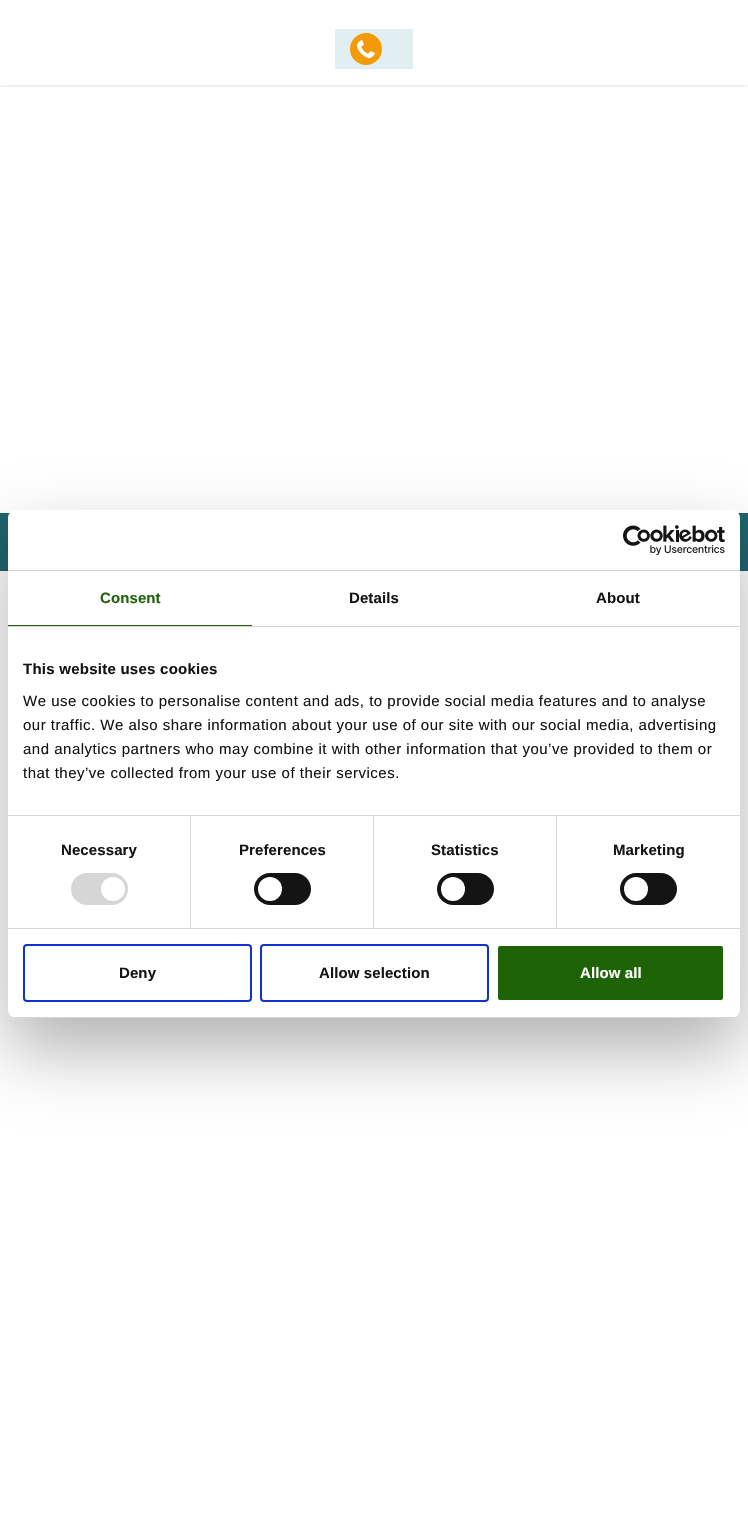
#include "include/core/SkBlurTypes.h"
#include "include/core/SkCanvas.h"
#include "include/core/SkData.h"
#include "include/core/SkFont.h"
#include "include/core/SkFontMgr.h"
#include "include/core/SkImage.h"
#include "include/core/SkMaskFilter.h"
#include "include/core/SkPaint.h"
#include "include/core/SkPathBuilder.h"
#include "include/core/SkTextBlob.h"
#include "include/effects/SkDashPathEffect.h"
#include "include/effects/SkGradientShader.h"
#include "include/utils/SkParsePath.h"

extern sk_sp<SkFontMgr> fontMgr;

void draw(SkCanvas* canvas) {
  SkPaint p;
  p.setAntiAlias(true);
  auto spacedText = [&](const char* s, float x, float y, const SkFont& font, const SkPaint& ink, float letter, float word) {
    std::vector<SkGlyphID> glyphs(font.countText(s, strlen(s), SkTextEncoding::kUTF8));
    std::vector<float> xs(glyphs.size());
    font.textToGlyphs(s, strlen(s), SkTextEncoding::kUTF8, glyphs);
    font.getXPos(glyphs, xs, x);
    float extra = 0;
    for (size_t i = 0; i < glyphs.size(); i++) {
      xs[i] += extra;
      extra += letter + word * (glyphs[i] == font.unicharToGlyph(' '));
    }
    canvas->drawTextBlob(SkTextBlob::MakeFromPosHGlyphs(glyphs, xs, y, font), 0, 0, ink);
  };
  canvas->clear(SK_ColorWHITE);
  canvas->save();
  canvas->clipRect(SkRect::MakeLTRB(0, 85, 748, 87));
  p.setColor(SkColorSetARGB(26, 0, 0, 0));
  p.setMaskFilter(SkMaskFilter::MakeBlur(kNormal_SkBlurStyle, 1.5f));
  canvas->drawRect(SkRect::MakeLTRB(0, 1, 748, 86), p);
  p.setMaskFilter(nullptr);
  canvas->restore();
  p.setColor(SkColorSetRGB(226, 239, 242));
  canvas->drawRect(SkRect::MakeLTRB(335, 29, 413, 69), p);
  p.setColor(SkColorSetRGB(243, 155, 6));
  canvas->drawCircle(366, 49, 16, p);
  canvas->drawImageRect(SkImages::DeferredFromEncodedData(SkData::MakeFromFileName("images/1.png")), SkRect::MakeLTRB(356, 40, 375, 59), SkSamplingOptions());
  p.setColor(SkColorSetRGB(31, 99, 107));
  canvas->drawRect(SkRect::MakeLTRB(0, 513, 748, 571), p);
  p.setColor(SkColorSetARGB(77, 0, 0, 0));
  p.setMaskFilter(SkMaskFilter::MakeBlur(kNormal_SkBlurStyle, 34));
  canvas->drawRoundRect(SkRect::MakeLTRB(8, 542, 740, 1050), 8, 8, p);
  p.setMaskFilter(nullptr);
  p.setColor(SK_ColorWHITE);
  canvas->drawRoundRect(SkRect::MakeLTRB(8, 510, 740, 1018), 8, 8, p);
  p.setColor(SkColorSetRGB(214, 214, 214));
  canvas->drawRect(SkRect::MakeLTRB(8, 570, 740, 571), p);
  canvas->drawImageRect(SkImages::DeferredFromEncodedData(SkData::MakeFromFileName("images/2.png")), SkRect::MakeLTRB(623, 525, 725, 555), SkSamplingOptions());
  canvas->drawRect(SkRect::MakeLTRB(8, 626, 740, 627), p);
  p.setColor(SkColorSetRGB(31, 99, 7));
  canvas->drawRect(SkRect::MakeLTRB(8, 625, 252, 626), p);
  p.setColor(SkColorSetRGB(214, 214, 214));
  canvas->drawRect(SkRect::MakeLTRB(8, 815, 740, 816), p);
  canvas->drawRect(SkRect::MakeLTRB(8, 928, 740, 929), p);
  canvas->drawRect(SkRect::MakeLTRB(190, 816, 191, 928), p);
  canvas->drawRoundRect(SkRect::MakeLTRB(71, 873, 128, 905), 16, 16, p);
  p.setColor(SK_ColorWHITE);
  canvas->drawCircle(113, 889, 12, p);
  p.setColor(SkColorSetRGB(214, 214, 214));
  canvas->drawRect(SkRect::MakeLTRB(373, 816, 374, 928), p);
  p.setColor(SkColorSetRGB(20, 20, 20));
  canvas->drawRoundRect(SkRect::MakeLTRB(254, 873, 311, 905), 16, 16, p);
  p.setColor(SK_ColorWHITE);
  canvas->drawCircle(270, 889, 12, p);
  p.setColor(SkColorSetRGB(214, 214, 214));
  canvas->drawRect(SkRect::MakeLTRB(556, 816, 557, 928), p);
  p.setColor(SkColorSetRGB(20, 20, 20));
  canvas->drawRoundRect(SkRect::MakeLTRB(437, 873, 494, 905), 16, 16, p);
  p.setColor(SK_ColorWHITE);
  canvas->drawCircle(453, 889, 12, p);
  p.setColor(SkColorSetRGB(20, 20, 20));
  canvas->drawRoundRect(SkRect::MakeLTRB(620, 873, 677, 905), 16, 16, p);
  p.setColor(SK_ColorWHITE);
  canvas->drawCircle(636, 889, 12, p);
  canvas->save();
  canvas->clipPath(SkPathBuilder().moveTo(16, 510).lineTo(732, 510).cubicTo(736.5f, 510, 740, 513.5f, 740, 518).lineTo(740, 1010).cubicTo(740, 1014.5f, 736.5f, 1018, 732, 1018).lineTo(16, 1018).cubicTo(11.5f, 1018, 8, 1014.5f, 8, 1010).lineTo(8, 518).cubicTo(8, 513.5f, 11.5f, 510, 16, 510).close().detach(), true);
  p.setColor(SkColorSetRGB(214, 214, 214));
  canvas->drawRect(SkRect::MakeLTRB(8, 1017, 740, 1018), p);
  canvas->restore();
  p.setStyle(SkPaint::kStroke_Style);
  p.setStrokeWidth(2);
  p.setColor(SkColorSetRGB(16, 50, 207));
  canvas->drawRoundRect(SkRect::MakeLTRB(24, 945, 251, 1001), 3, 3, p);
  canvas->drawRoundRect(SkRect::MakeLTRB(261, 945, 488, 1001), 3, 3, p);
  p.setStyle(SkPaint::kFill_Style);
  p.setColor(SkColorSetRGB(31, 99, 7));
  canvas->drawRoundRect(SkRect::MakeLTRB(497, 945, 724, 1001), 3, 3, p);
  p.setStyle(SkPaint::kStroke_Style);
  p.setColor(SK_ColorWHITE);
  canvas->drawRoundRect(SkRect::MakeLTRB(497, 945, 724, 1001), 3, 3, p);
  SkFont font1(fontMgr->matchFamilyStyle("Liberation Sans", SkFontStyle::Bold()), 15);
  font1.setSubpixel(true);
  p.setStyle(SkPaint::kFill_Style);
  p.setColor(SkColorSetRGB(31, 99, 7));
  spacedText("Consent", 100, 603, font1, p, 0.1f, 0);
  p.setColor(SkColorSetRGB(20, 20, 20));
  spacedText("Details", 349, 603, font1, p, 0.1f, 0);
  spacedText("About", 596, 603, font1, p, 0.1f, 0);
  spacedText("This website uses cookies", 23, 674, font1, p, 0.25f, 0);
  SkFont font2(fontMgr->matchFamilyStyle("Liberation Sans", SkFontStyle::Normal()), 15);
  font2.setSubpixel(true);
  spacedText("We use cookies to personalise content and ads, to provide social media features and to analyse", 23, 706, font2, p, 0.5f, 0);
  spacedText("our traffic. We also share information about your use of our site with our social media, advertising", 23, 730, font2, p, 0.5f, 0);
  spacedText("and analytics partners who may combine it with other information that you’ve provided to them or", 23, 754, font2, p, 0.5f, 0);
  spacedText("that they’ve collected from your use of their services.", 23, 778, font2, p, 0.5f, 0);
  spacedText("Necessary", 61, 855, font1, p, 0.1f, 0);
  spacedText("Preferences", 239, 855, font1, p, 0.1f, 0);
  spacedText("Statistics", 431, 855, font1, p, 0.1f, 0);
  spacedText("Marketing", 613, 855, font1, p, 0.1f, 0);
  spacedText("Deny", 119, 978, font1, p, 0.1f, 0);
  spacedText("Allow selection", 319, 978, font1, p, 0.1f, 0);
  p.setColor(SK_ColorWHITE);
  spacedText("Allow all", 580, 978, font1, p, 0.1f, 0);
}
